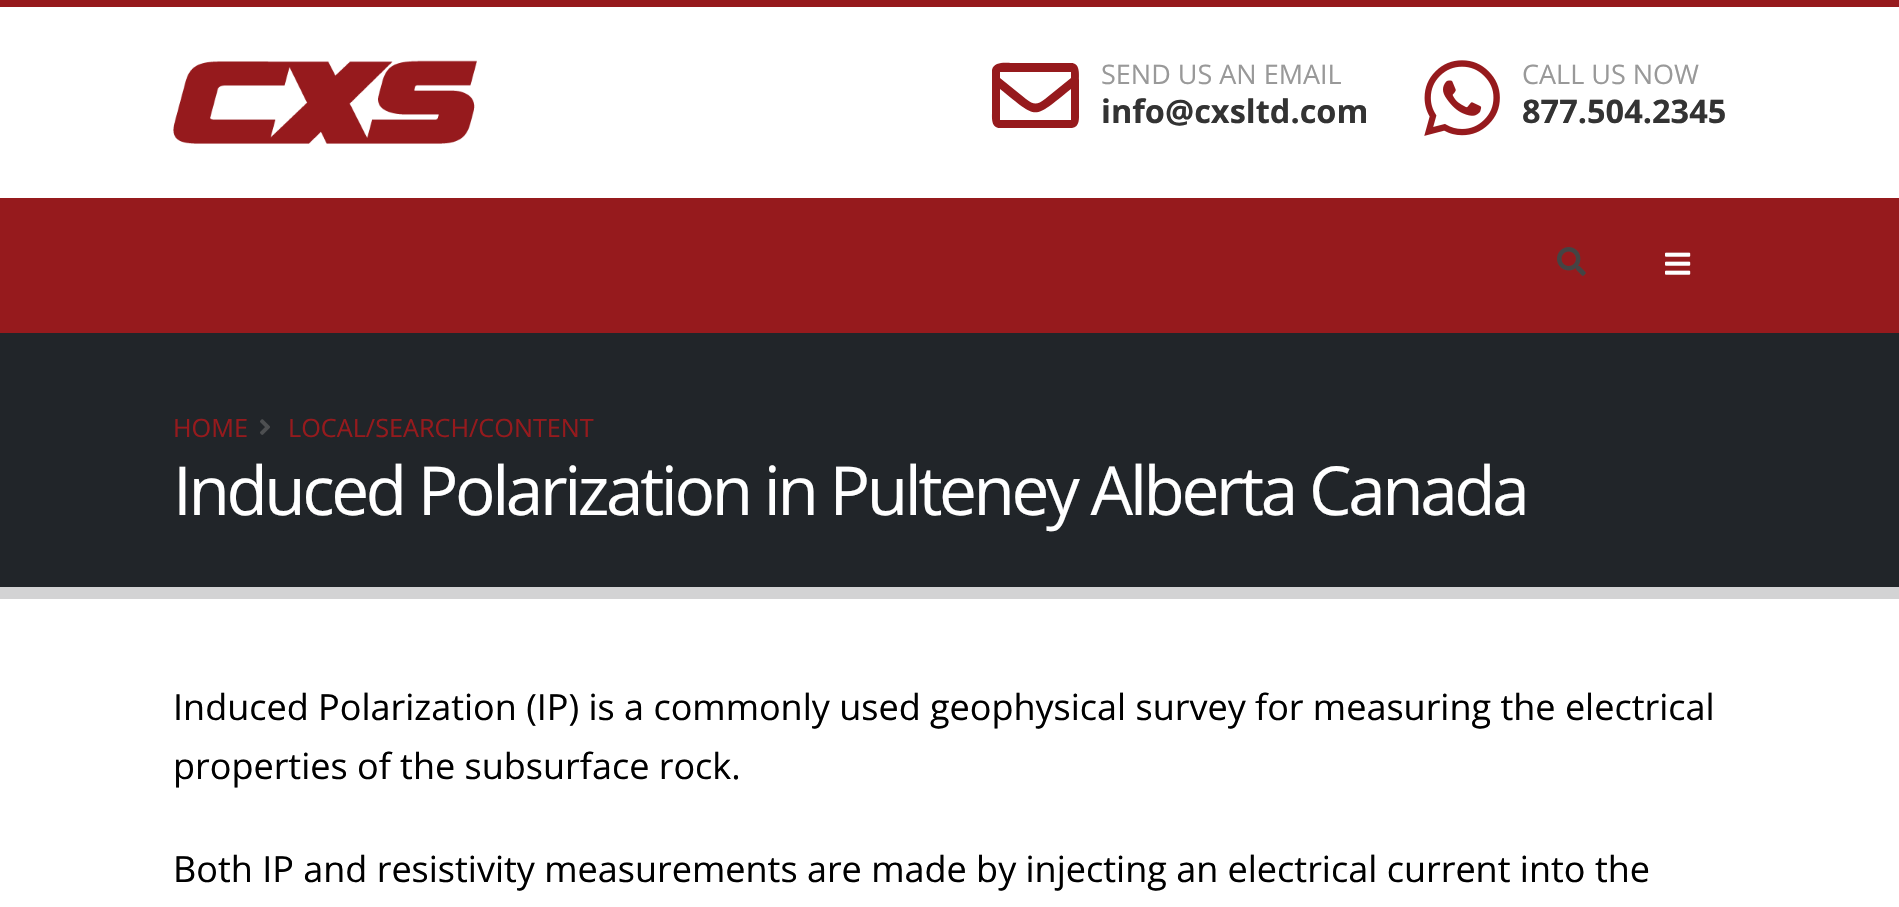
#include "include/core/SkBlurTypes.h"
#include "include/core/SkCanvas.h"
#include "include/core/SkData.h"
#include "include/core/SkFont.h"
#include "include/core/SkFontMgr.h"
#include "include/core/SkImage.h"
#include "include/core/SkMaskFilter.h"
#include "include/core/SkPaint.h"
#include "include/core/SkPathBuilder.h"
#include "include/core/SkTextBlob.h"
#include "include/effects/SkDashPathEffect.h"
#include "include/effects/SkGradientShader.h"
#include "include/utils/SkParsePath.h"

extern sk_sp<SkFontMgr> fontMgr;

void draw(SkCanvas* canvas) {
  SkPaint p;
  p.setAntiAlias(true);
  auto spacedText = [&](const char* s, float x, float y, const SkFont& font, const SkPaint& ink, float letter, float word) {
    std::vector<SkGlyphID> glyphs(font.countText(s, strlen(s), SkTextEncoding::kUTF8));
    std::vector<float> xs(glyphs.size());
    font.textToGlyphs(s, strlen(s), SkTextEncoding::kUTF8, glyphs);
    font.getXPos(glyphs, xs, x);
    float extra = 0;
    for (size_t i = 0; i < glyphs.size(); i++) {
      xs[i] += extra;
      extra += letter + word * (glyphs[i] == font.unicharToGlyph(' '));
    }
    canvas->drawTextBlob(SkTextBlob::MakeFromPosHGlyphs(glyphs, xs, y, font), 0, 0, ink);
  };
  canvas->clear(SK_ColorWHITE);
  p.setColor(SkColorSetRGB(150, 26, 29));
  canvas->drawRect(SkRect::MakeLTRB(0, 0, 1899, 7), p);
  canvas->drawImageRect(SkImages::DeferredFromEncodedData(SkData::MakeFromFileName("images/1.png")), SkRect::MakeLTRB(173, 60, 477, 144), SkSamplingOptions());
  canvas->drawPath(SkPathBuilder().moveTo(1071, 63).cubicTo(1080, 63, 1079, 73, 1079, 80).lineTo(1079, 112).cubicTo(1079, 118, 1080, 127, 1072, 128).lineTo(1000, 128).cubicTo(991, 128, 992, 118, 992, 112).lineTo(992, 70).cubicTo(994, 61, 1006, 63, 1012, 63).close().moveTo(1071, 72).lineTo(1000, 72).lineTo(1000, 78).lineTo(1026, 99).cubicTo(1034, 105, 1037, 105, 1045, 99).lineTo(1071, 78).close().moveTo(1000, 120).lineTo(1071, 120).lineTo(1071, 89).cubicTo(1032, 120, 1039, 120, 1000, 89).close().detach(), p);
  canvas->drawImageRect(SkImages::DeferredFromEncodedData(SkData::MakeFromFileName("images/2.png")), SkRect::MakeLTRB(1424, 60, 1500, 136), SkSamplingOptions());
  canvas->drawRect(SkRect::MakeLTRB(0, 198, 1899, 333), p);
  canvas->drawImageRect(SkImages::DeferredFromEncodedData(SkData::MakeFromFileName("images/3.png")), SkRect::MakeLTRB(1557, 247, 1586, 276), SkSamplingOptions());
  canvas->drawImageRect(SkImages::DeferredFromEncodedData(SkData::MakeFromFileName("images/4.png")), SkRect::MakeLTRB(1665, 252, 1691, 275), SkSamplingOptions());
  p.setColor(SkColorSetRGB(33, 37, 41));
  canvas->drawRect(SkRect::MakeLTRB(0, 333, 1899, 587), p);
  canvas->drawImageRect(SkImages::DeferredFromEncodedData(SkData::MakeFromFileName("images/5.png")), SkRect::MakeLTRB(260, 419, 270, 435), SkSamplingOptions());
  p.setColor(SkColorSetRGB(211, 211, 212));
  canvas->drawRect(SkRect::MakeLTRB(0, 587, 1899, 599), p);
  SkFont font1(fontMgr->matchFamilyStyle("Open Sans", SkFontStyle::Normal()), 27);
  font1.setSubpixel(true);
  p.setColor(SkColorSetRGB(153, 153, 153));
  canvas->drawString("SEND US AN EMAIL", 1101, 84, font1, p);
  SkFont font2(fontMgr->matchFamilyStyle("Open Sans", SkFontStyle::Bold()), 32.5f);
  font2.setSubpixel(true);
  p.setColor(SkColorSetRGB(51, 51, 51));
  canvas->drawString("info@cxsltd.com", 1101, 123, font2, p);
  p.setColor(SkColorSetRGB(153, 153, 153));
  canvas->drawString("CALL US NOW", 1522, 84, font1, p);
  p.setColor(SkColorSetRGB(51, 51, 51));
  canvas->drawString("877.504.2345", 1522, 123, font2, p);
  SkFont font3(fontMgr->matchFamilyStyle("Open Sans", SkFontStyle::Normal()), 25.25f);
  font3.setSubpixel(true);
  p.setColor(SkColorSetRGB(150, 26, 29));
  canvas->drawString("HOME", 173, 437, font3, p);
  canvas->drawString("LOCAL/SEARCH/CONTENT", 288, 437, font3, p);
  SkFont font4(fontMgr->matchFamilyStyle("Open Sans", SkFontStyle::Normal()), 67.5f);
  font4.setSubpixel(true);
  p.setColor(SK_ColorWHITE);
  spacedText("Induced Polarization in Pulteney Alberta Canada", 173, 515, font4, p, -3.4f, 0);
  SkFont font5(fontMgr->matchFamilyStyle("Open Sans", SkFontStyle::Normal()), 36);
  font5.setSubpixel(true);
  p.setColor(SK_ColorBLACK);
  canvas->drawString("Induced Polarization (IP) is a commonly used geophysical survey for measuring the electrical", 173, 720, font5, p);
  canvas->drawString("properties of the subsurface rock.", 173, 779, font5, p);
  canvas->drawString("Both IP and resistivity measurements are made by injecting an electrical current into the", 173, 882, font5, p);
}
